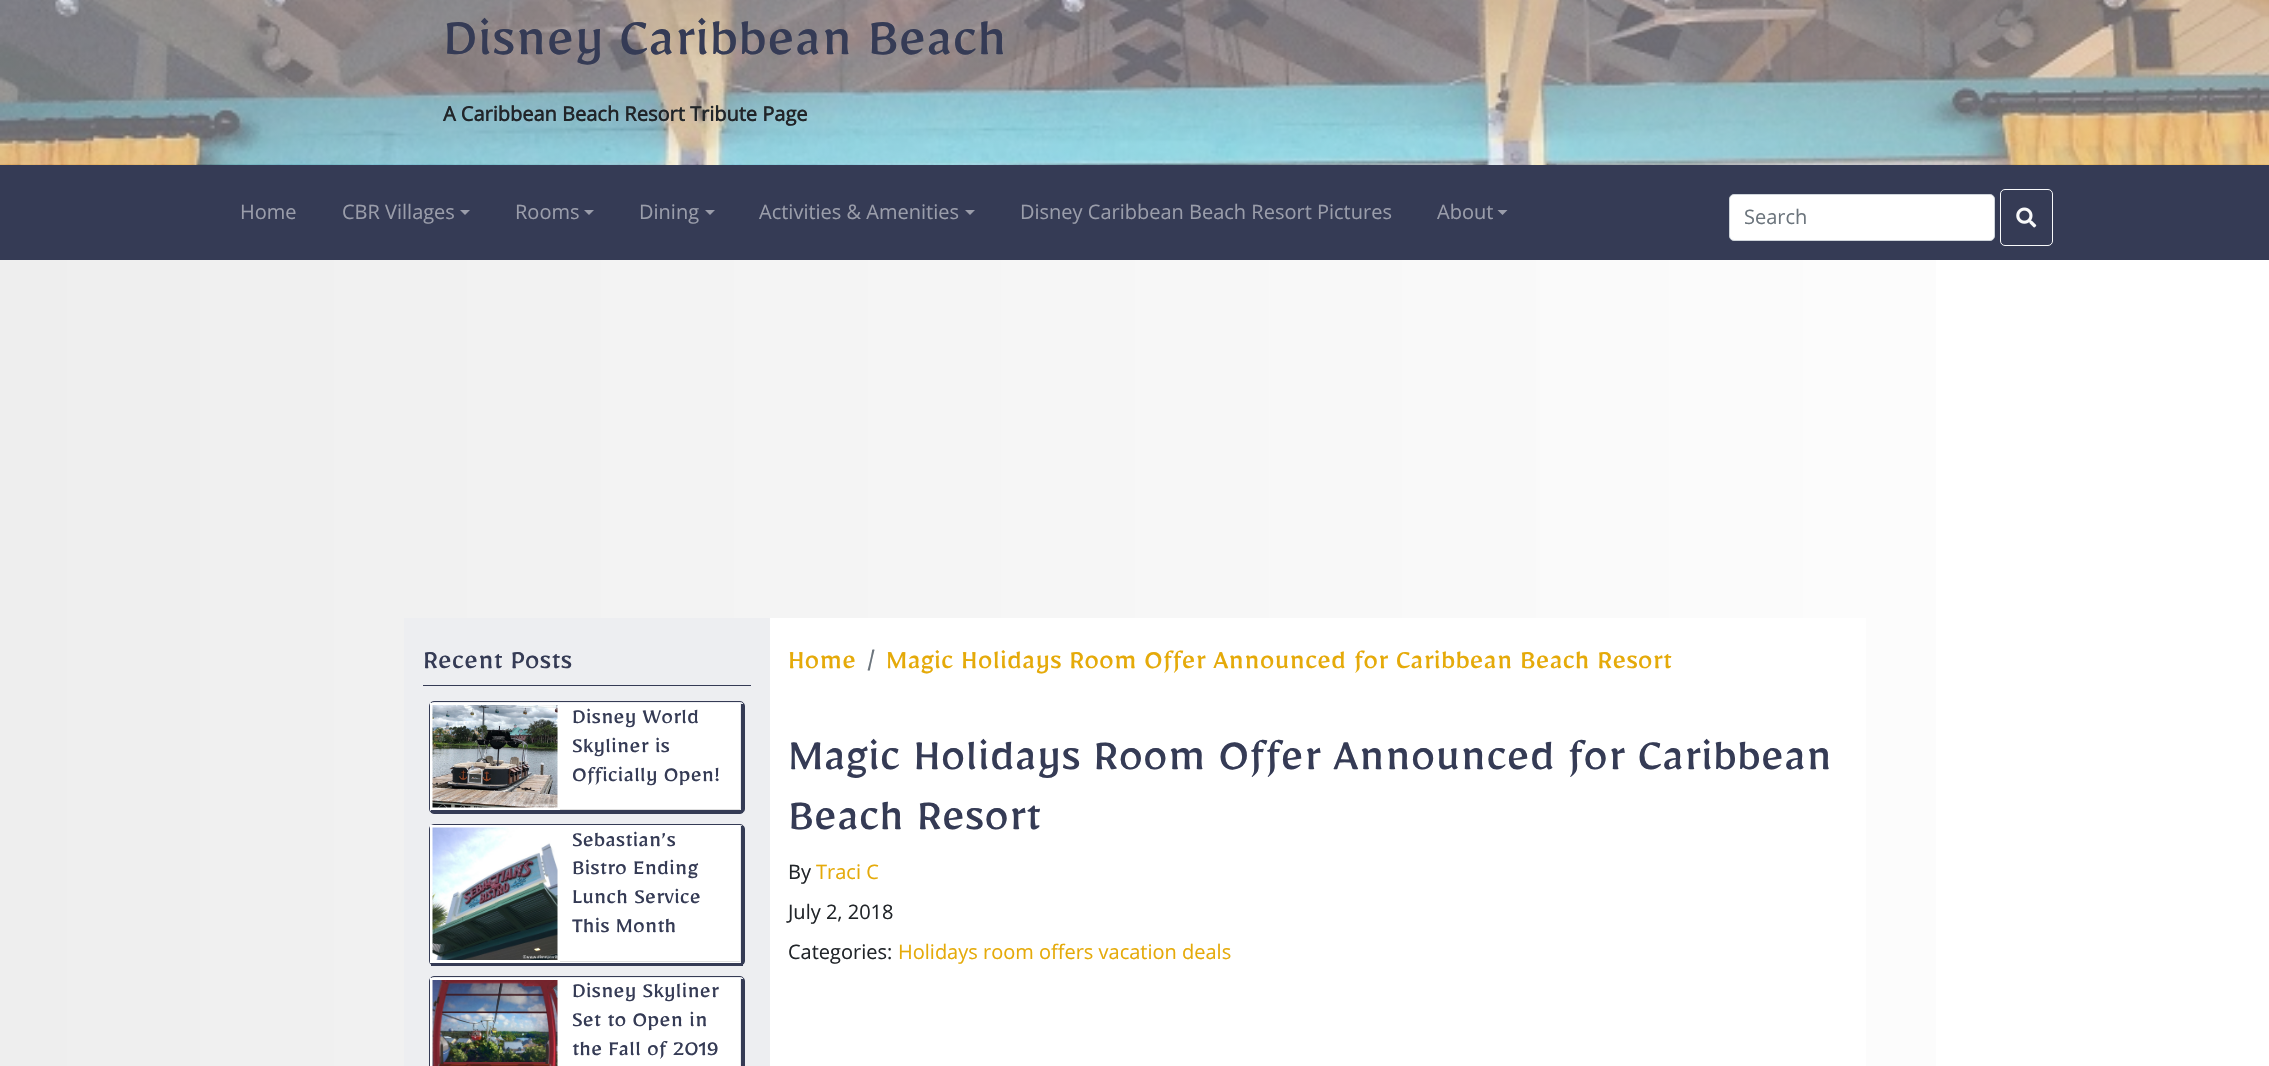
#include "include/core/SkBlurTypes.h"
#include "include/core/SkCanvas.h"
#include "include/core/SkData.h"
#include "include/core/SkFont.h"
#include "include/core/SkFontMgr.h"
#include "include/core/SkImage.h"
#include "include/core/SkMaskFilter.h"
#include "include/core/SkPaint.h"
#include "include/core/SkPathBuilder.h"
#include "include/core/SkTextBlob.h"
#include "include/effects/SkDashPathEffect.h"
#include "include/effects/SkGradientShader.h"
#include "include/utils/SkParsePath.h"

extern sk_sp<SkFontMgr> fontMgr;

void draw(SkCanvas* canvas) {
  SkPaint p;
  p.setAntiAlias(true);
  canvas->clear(SK_ColorWHITE);
  canvas->drawImageRect(SkImages::DeferredFromEncodedData(SkData::MakeFromFileName("images/1.png")), SkRect::MakeLTRB(0, 0, 2269, 165), SkSamplingOptions());
  p.setColor(SkColorSetRGB(53, 59, 85));
  canvas->drawRect(SkRect::MakeLTRB(0, 165, 2269, 260), p);
  p.setColor(SkColorSetRGB(154, 157, 170));
  canvas->drawPath(SkPathBuilder().moveTo(460, 210).lineTo(470, 210).lineTo(465, 215).close().detach(), p);
  canvas->drawPath(SkPathBuilder().moveTo(584, 210).lineTo(594, 210).lineTo(589, 215).close().detach(), p);
  canvas->drawPath(SkPathBuilder().moveTo(705, 210).lineTo(715, 210).lineTo(710, 215).close().detach(), p);
  canvas->drawPath(SkPathBuilder().moveTo(965, 210).lineTo(975, 210).lineTo(970, 215).close().detach(), p);
  canvas->drawPath(SkPathBuilder().moveTo(1497.5f, 210).lineTo(1507.5f, 210).lineTo(1502.5f, 215).close().detach(), p);
  p.setColor(SK_ColorWHITE);
  canvas->drawRoundRect(SkRect::MakeLTRB(1729.5f, 194.5f, 1994.5f, 240.5f), 4.5f, 4.5f, p);
  p.setStyle(SkPaint::kStroke_Style);
  p.setStrokeWidth(1);
  p.setColor(SkColorSetRGB(206, 212, 218));
  canvas->drawRoundRect(SkRect::MakeLTRB(1729.5f, 194.5f, 1994.5f, 240.5f), 4.5f, 4.5f, p);
  p.setColor(SkColorSetRGB(248, 249, 250));
  canvas->drawRoundRect(SkRect::MakeLTRB(2000.5f, 189.5f, 2052.5f, 245.5f), 4.5f, 4.5f, p);
  canvas->drawImageRect(SkImages::DeferredFromEncodedData(SkData::MakeFromFileName("images/2.png")), SkRect::MakeLTRB(2016, 207, 2037, 228), SkSamplingOptions());
  p.setStyle(SkPaint::kFill_Style);
  {
    const SkColor colors[] = {SkColorSetRGB(238, 238, 238), SK_ColorWHITE};
    const float stops[] = {0, 1};
    const SkPoint ends[] = {{0, 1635}, {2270, 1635}};
    p.setShader(SkGradientShader::MakeLinear(ends, colors, stops, 2, SkTileMode::kClamp));
    p.setAlpha(255);
  }
  canvas->drawRect(SkRect::MakeLTRB(0, 260, 1936, 1066), p);
  p.setShader(nullptr);
  p.setColor(SkColorSetRGB(237, 238, 241));
  canvas->drawRect(SkRect::MakeLTRB(404, 618, 770, 1066), p);
  p.setColor(SkColorSetRGB(53, 59, 85));
  canvas->drawRect(SkRect::MakeLTRB(423, 685, 751, 686), p);
  p.setStyle(SkPaint::kStroke_Style);
  canvas->drawRoundRect(SkRect::MakeLTRB(429.5f, 701.5f, 744.5f, 813.5f), 4.5f, 4.5f, p);
  p.setStyle(SkPaint::kFill_Style);
  canvas->drawRect(SkRect::MakeLTRB(741, 704, 744, 811), p);
  canvas->drawRect(SkRect::MakeLTRB(431, 810, 743, 813), p);
  p.setColor(SK_ColorWHITE);
  canvas->drawRect(SkRect::MakeLTRB(430, 703, 560, 810), p);
  canvas->drawImageRect(SkImages::DeferredFromEncodedData(SkData::MakeFromFileName("images/3.png")), SkRect::MakeLTRB(432, 705, 558, 808), SkSamplingOptions());
  canvas->drawRect(SkRect::MakeLTRB(560, 703, 740, 809), p);
  p.setColor(SkColorSetRGB(223, 223, 223));
  canvas->drawRect(SkRect::MakeLTRB(560, 809, 740, 810), p);
  p.setStyle(SkPaint::kStroke_Style);
  p.setColor(SkColorSetRGB(53, 59, 85));
  canvas->drawRoundRect(SkRect::MakeLTRB(429.5f, 824.5f, 744.5f, 965.5f), 4.5f, 4.5f, p);
  p.setStyle(SkPaint::kFill_Style);
  canvas->drawRect(SkRect::MakeLTRB(741, 826, 744, 964), p);
  canvas->drawRect(SkRect::MakeLTRB(431, 963, 743, 966), p);
  p.setColor(SK_ColorWHITE);
  canvas->drawRect(SkRect::MakeLTRB(430, 825, 740, 963), p);
  canvas->drawImageRect(SkImages::DeferredFromEncodedData(SkData::MakeFromFileName("images/4.png")), SkRect::MakeLTRB(432, 827, 558, 960), SkSamplingOptions());
  p.setColor(SkColorSetRGB(223, 223, 223));
  canvas->drawRect(SkRect::MakeLTRB(560, 961, 740, 962), p);
  p.setStyle(SkPaint::kStroke_Style);
  p.setColor(SkColorSetRGB(53, 59, 85));
  canvas->drawRoundRect(SkRect::MakeLTRB(429.5f, 976.5f, 744.5f, 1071.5f), 4.5f, 4.5f, p);
  p.setStyle(SkPaint::kFill_Style);
  canvas->drawRect(SkRect::MakeLTRB(741, 979, 744, 1066), p);
  p.setColor(SK_ColorWHITE);
  canvas->drawRect(SkRect::MakeLTRB(430, 978, 740, 1066), p);
  canvas->drawImageRect(SkImages::DeferredFromEncodedData(SkData::MakeFromFileName("images/5.png")), SkRect::MakeLTRB(432, 980, 558, 1066), SkSamplingOptions());
  canvas->drawRect(SkRect::MakeLTRB(770, 618, 1866, 1066), p);
  SkFont font1(fontMgr->matchFamilyStyle("Mirza", SkFontStyle::Normal()), 60);
  font1.setSubpixel(true);
  p.setColor(SkColorSetRGB(53, 59, 85));
  canvas->drawString("Disney Caribbean Beach", 443, 54, font1, p);
  SkFont font2(fontMgr->matchFamilyStyle("Open Sans", SkFontStyle::Bold()), 20);
  font2.setSubpixel(true);
  p.setColor(SkColorSetRGB(33, 37, 41));
  canvas->drawString("A Caribbean Beach Resort Tribute Page", 443, 121, font2, p);
  SkFont font3(fontMgr->matchFamilyStyle("Open Sans", SkFontStyle::Normal()), 20);
  font3.setSubpixel(true);
  p.setColor(SkColorSetRGB(154, 157, 170));
  canvas->drawString("Home", 240, 219, font3, p);
  canvas->drawString("CBR Villages", 342, 219, font3, p);
  canvas->drawString("Rooms", 515, 219, font3, p);
  canvas->drawString("Dining", 639, 219, font3, p);
  canvas->drawString("Activities & Amenities", 759, 219, font3, p);
  canvas->drawString("Disney Caribbean Beach Resort Pictures", 1020, 219, font3, p);
  canvas->drawString("About", 1437, 219, font3, p);
  p.setColor(SkColorSetRGB(108, 117, 125));
  canvas->drawString("Search", 1744, 224, font3, p);
  SkFont font4(fontMgr->matchFamilyStyle("Mirza", SkFontStyle::Normal()), 30);
  font4.setSubpixel(true);
  p.setColor(SkColorSetRGB(53, 59, 85));
  canvas->drawString("Recent Posts", 423, 668, font4, p);
  SkFont font5(fontMgr->matchFamilyStyle("Mirza", SkFontStyle::Normal()), 24);
  font5.setSubpixel(true);
  canvas->drawString("Disney World", 572, 723, font5, p);
  canvas->drawString("Skyliner is", 572, 752, font5, p);
  canvas->drawString("Officially Open!", 572, 781, font5, p);
  canvas->drawString("Sebastian’s", 572, 846, font5, p);
  canvas->drawString("Bistro Ending", 572, 874, font5, p);
  canvas->drawString("Lunch Service", 572, 903, font5, p);
  canvas->drawString("This Month", 572, 932, font5, p);
  canvas->drawString("Disney Skyliner", 572, 997, font5, p);
  canvas->drawString("Set to Open in", 572, 1026, font5, p);
  canvas->drawString("the Fall of 2019", 572, 1055, font5, p);
  p.setColor(SkColorSetRGB(229, 170, 9));
  canvas->drawString("Home", 788, 668, font4, p);
  p.setColor(SkColorSetRGB(108, 117, 125));
  canvas->drawString("/", 866, 668, font4, p);
  p.setColor(SkColorSetRGB(229, 170, 9));
  canvas->drawString("Magic Holidays Room Offer Announced for Caribbean Beach Resort", 886, 668, font4, p);
  SkFont font6(fontMgr->matchFamilyStyle("Mirza", SkFontStyle::Normal()), 50);
  font6.setSubpixel(true);
  p.setColor(SkColorSetRGB(53, 59, 85));
  canvas->drawString("Magic Holidays Room Offer Announced for Caribbean", 788, 769, font6, p);
  canvas->drawString("Beach Resort", 788, 829, font6, p);
  p.setColor(SkColorSetRGB(33, 37, 41));
  canvas->drawString("By", 788, 879, font3, p);
  p.setColor(SkColorSetRGB(229, 170, 9));
  canvas->drawString("Traci C", 816, 879, font3, p);
  p.setColor(SkColorSetRGB(33, 37, 41));
  canvas->drawString("July 2, 2018", 788, 919, font3, p);
  canvas->drawString("Categories:", 788, 959, font3, p);
  p.setColor(SkColorSetRGB(229, 170, 9));
  canvas->drawString("Holidays room offers vacation deals", 898, 959, font3, p);
}
